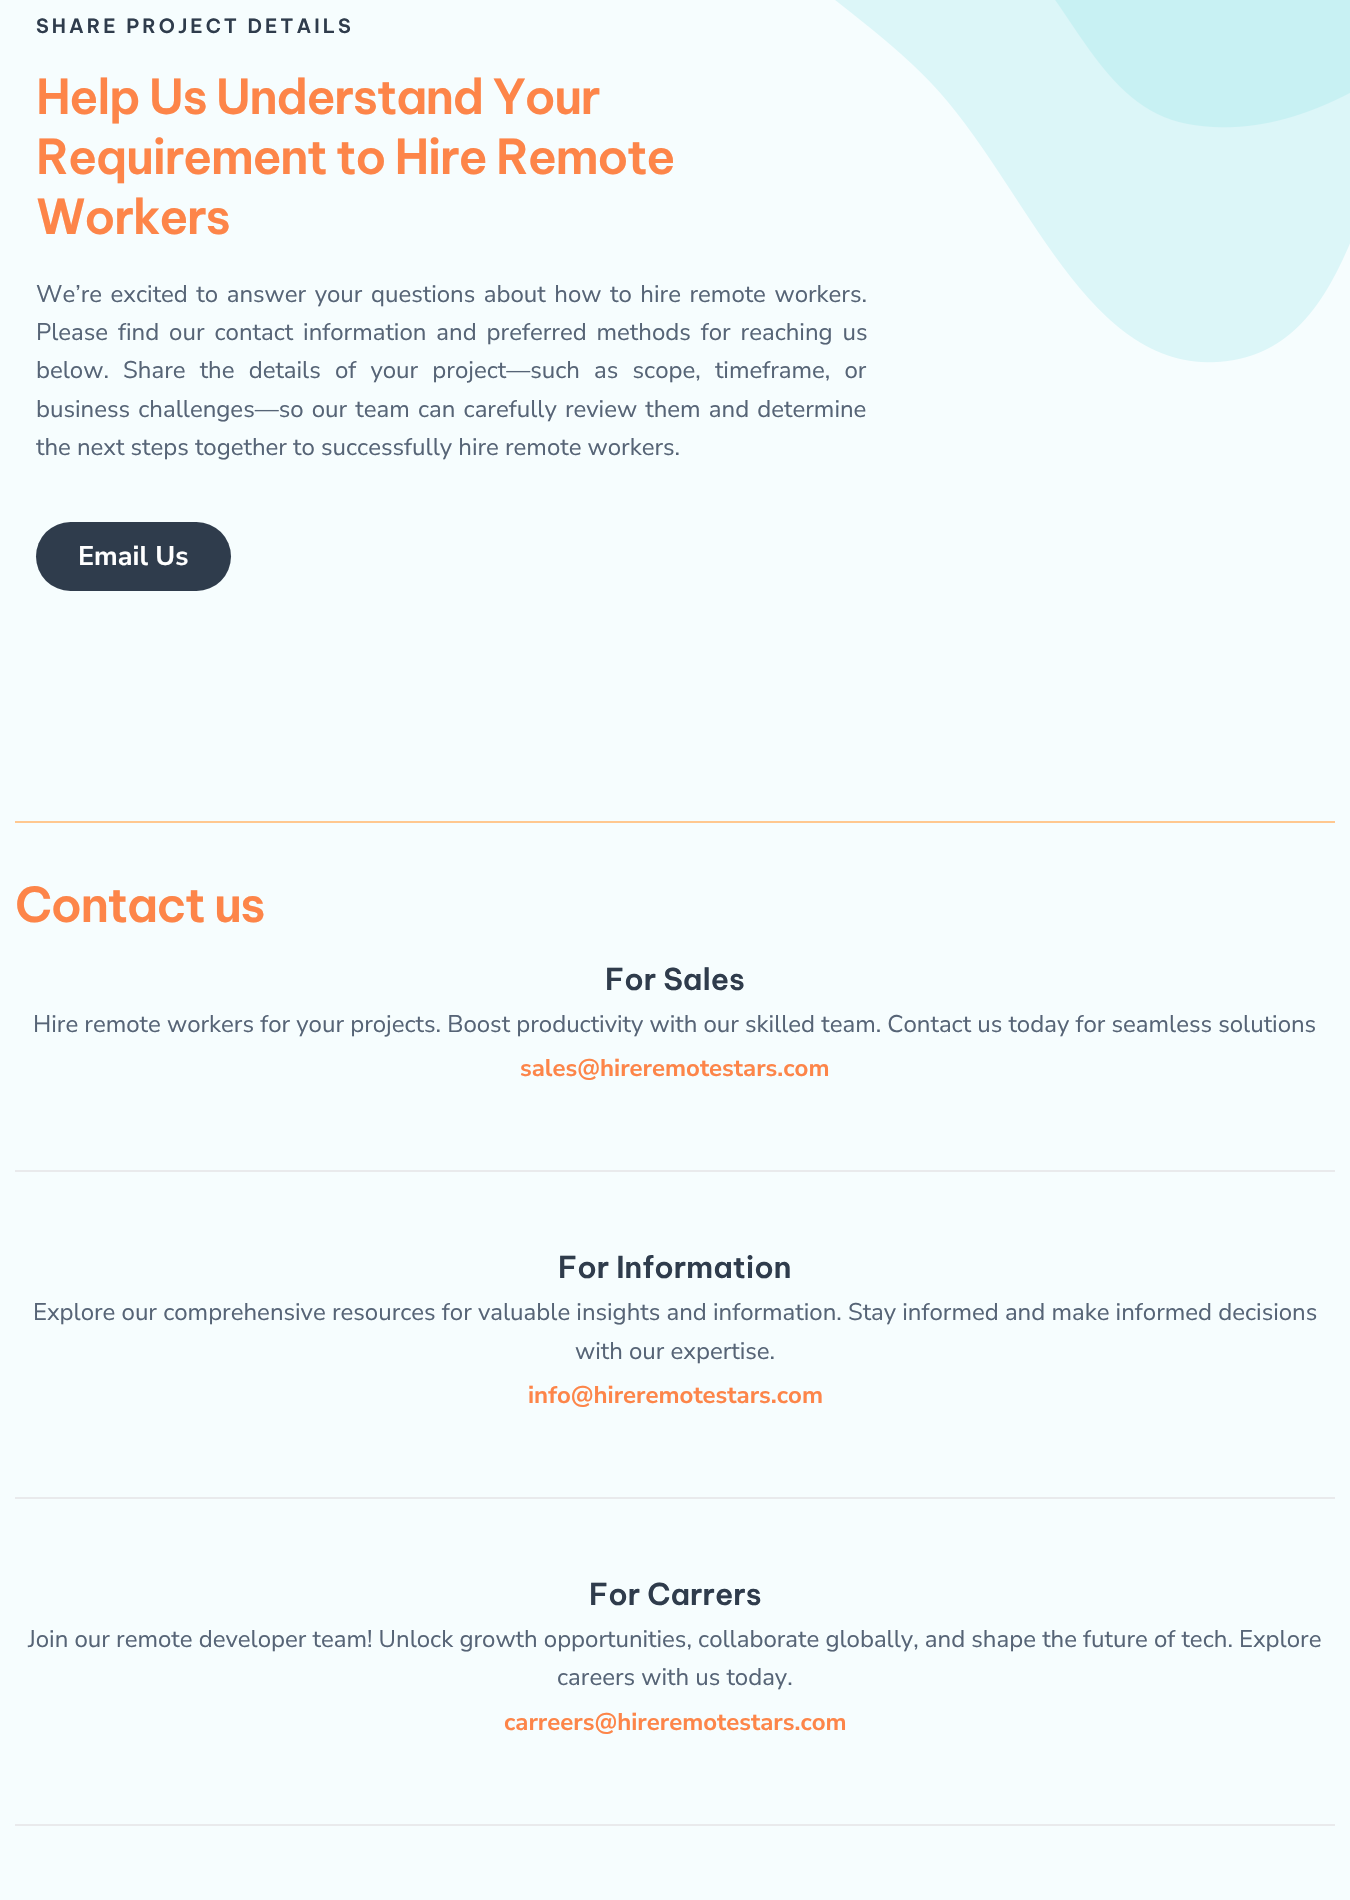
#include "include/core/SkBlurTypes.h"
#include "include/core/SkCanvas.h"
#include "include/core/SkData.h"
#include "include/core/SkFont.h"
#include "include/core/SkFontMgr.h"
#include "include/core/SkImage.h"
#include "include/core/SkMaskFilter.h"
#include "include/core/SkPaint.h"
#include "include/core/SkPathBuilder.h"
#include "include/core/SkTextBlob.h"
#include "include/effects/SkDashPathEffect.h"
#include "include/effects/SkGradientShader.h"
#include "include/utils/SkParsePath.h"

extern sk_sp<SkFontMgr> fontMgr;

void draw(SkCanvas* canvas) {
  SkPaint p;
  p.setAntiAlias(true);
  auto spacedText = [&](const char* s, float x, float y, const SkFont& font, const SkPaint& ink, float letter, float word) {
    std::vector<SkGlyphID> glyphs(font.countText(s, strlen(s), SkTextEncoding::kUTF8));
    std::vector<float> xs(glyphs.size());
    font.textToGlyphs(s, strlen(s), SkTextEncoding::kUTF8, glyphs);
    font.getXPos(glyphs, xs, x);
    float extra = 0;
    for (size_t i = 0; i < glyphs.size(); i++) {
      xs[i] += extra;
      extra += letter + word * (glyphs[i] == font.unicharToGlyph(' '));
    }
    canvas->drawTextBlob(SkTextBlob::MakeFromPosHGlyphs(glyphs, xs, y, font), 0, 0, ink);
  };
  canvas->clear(SkColorSetRGB(246, 253, 254));
  canvas->drawImageRect(SkImages::DeferredFromEncodedData(SkData::MakeFromFileName("images/1.png")), SkRect::MakeLTRB(835, 0, 1350, 363), SkSamplingOptions());
  p.setColor(SkColorSetRGB(47, 60, 76));
  canvas->drawRoundRect(SkRect::MakeLTRB(36, 522, 231, 591), 34.5f, 34.5f, p);
  p.setColor(SkColorSetRGB(255, 200, 144));
  canvas->drawRect(SkRect::MakeLTRB(15, 821, 1335, 823), p);
  p.setColor(SkColorSetRGB(233, 234, 236));
  canvas->drawRect(SkRect::MakeLTRB(15, 1170, 1335, 1172), p);
  canvas->drawRect(SkRect::MakeLTRB(15, 1497, 1335, 1499), p);
  canvas->drawRect(SkRect::MakeLTRB(15, 1824, 1335, 1826), p);
  SkFont font1(fontMgr->matchFamilyStyle("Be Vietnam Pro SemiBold", SkFontStyle(600, SkFontStyle::kNormal_Width, SkFontStyle::kUpright_Slant)), 19.5f);
  font1.setSubpixel(true);
  p.setColor(SkColorSetRGB(47, 60, 76));
  spacedText("SHARE PROJECT DETAILS", 36, 33, font1, p, 3, 0);
  SkFont font2(fontMgr->matchFamilyStyle("Be Vietnam Pro SemiBold", SkFontStyle(600, SkFontStyle::kNormal_Width, SkFontStyle::kUpright_Slant)), 48);
  font2.setSubpixel(true);
  p.setColor(SkColorSetRGB(253, 133, 73));
  spacedText("Help Us Understand Your", 36, 114, font2, p, -1.5f, 0);
  spacedText("Requirement to Hire Remote", 36, 174, font2, p, -1.5f, 0);
  spacedText("Workers", 36, 234, font2, p, -1.5f, 0);
  SkFont font3(fontMgr->matchFamilyStyle("Nunito Sans", SkFontStyle::Normal()), 24);
  font3.setSubpixel(true);
  p.setColor(SkColorSetRGB(86, 100, 118));
  spacedText("We’re excited to answer your questions about how to hire remote workers.", 36, 302, font3, p, 0, 2.4f);
  spacedText("Please find our contact information and preferred methods for reaching us", 36, 340, font3, p, 0, 3.75f);
  spacedText("below. Share the details of your project—such as scope, timeframe, or", 36, 378, font3, p, 0, 8);
  spacedText("business challenges—so our team can carefully review them and determine", 36, 417, font3, p, 0, 2);
  canvas->drawString("the next steps together to successfully hire remote workers.", 36, 455, font3, p);
  SkFont font4(fontMgr->matchFamilyStyle("Nunito Sans", SkFontStyle::Bold()), 27);
  font4.setSubpixel(true);
  p.setColor(SK_ColorWHITE);
  canvas->drawString("Email Us", 78, 565, font4, p);
  p.setColor(SkColorSetRGB(253, 133, 73));
  spacedText("Contact us", 15, 922, font2, p, -1.5f, 0);
  SkFont font5(fontMgr->matchFamilyStyle("Be Vietnam Pro SemiBold", SkFontStyle(600, SkFontStyle::kNormal_Width, SkFontStyle::kUpright_Slant)), 30);
  font5.setSubpixel(true);
  p.setColor(SkColorSetRGB(47, 60, 76));
  canvas->drawString("For Sales", 605, 990, font5, p);
  p.setColor(SkColorSetRGB(86, 100, 118));
  canvas->drawString("Hire remote workers for your projects. Boost productivity with our skilled team. Contact us today for seamless solutions", 33, 1032, font3, p);
  SkFont font6(fontMgr->matchFamilyStyle("Nunito Sans", SkFontStyle::Bold()), 24);
  font6.setSubpixel(true);
  p.setColor(SkColorSetRGB(253, 133, 73));
  canvas->drawString("sales@hireremotestars.com", 520, 1076, font6, p);
  p.setColor(SkColorSetRGB(47, 60, 76));
  canvas->drawString("For Information", 558, 1278, font5, p);
  p.setColor(SkColorSetRGB(86, 100, 118));
  canvas->drawString("Explore our comprehensive resources for valuable insights and information. Stay informed and make informed decisions", 33, 1320, font3, p);
  canvas->drawString("with our expertise.", 575, 1359, font3, p);
  p.setColor(SkColorSetRGB(253, 133, 73));
  canvas->drawString("info@hireremotestars.com", 528, 1403, font6, p);
  p.setColor(SkColorSetRGB(47, 60, 76));
  canvas->drawString("For Carrers", 589, 1605, font5, p);
  p.setColor(SkColorSetRGB(86, 100, 118));
  canvas->drawString("Join our remote developer team! Unlock growth opportunities, collaborate globally, and shape the future of tech. Explore", 28, 1647, font3, p);
  canvas->drawString("careers with us today.", 557, 1685, font3, p);
  p.setColor(SkColorSetRGB(253, 133, 73));
  canvas->drawString("carreers@hireremotestars.com", 504, 1730, font6, p);
}
